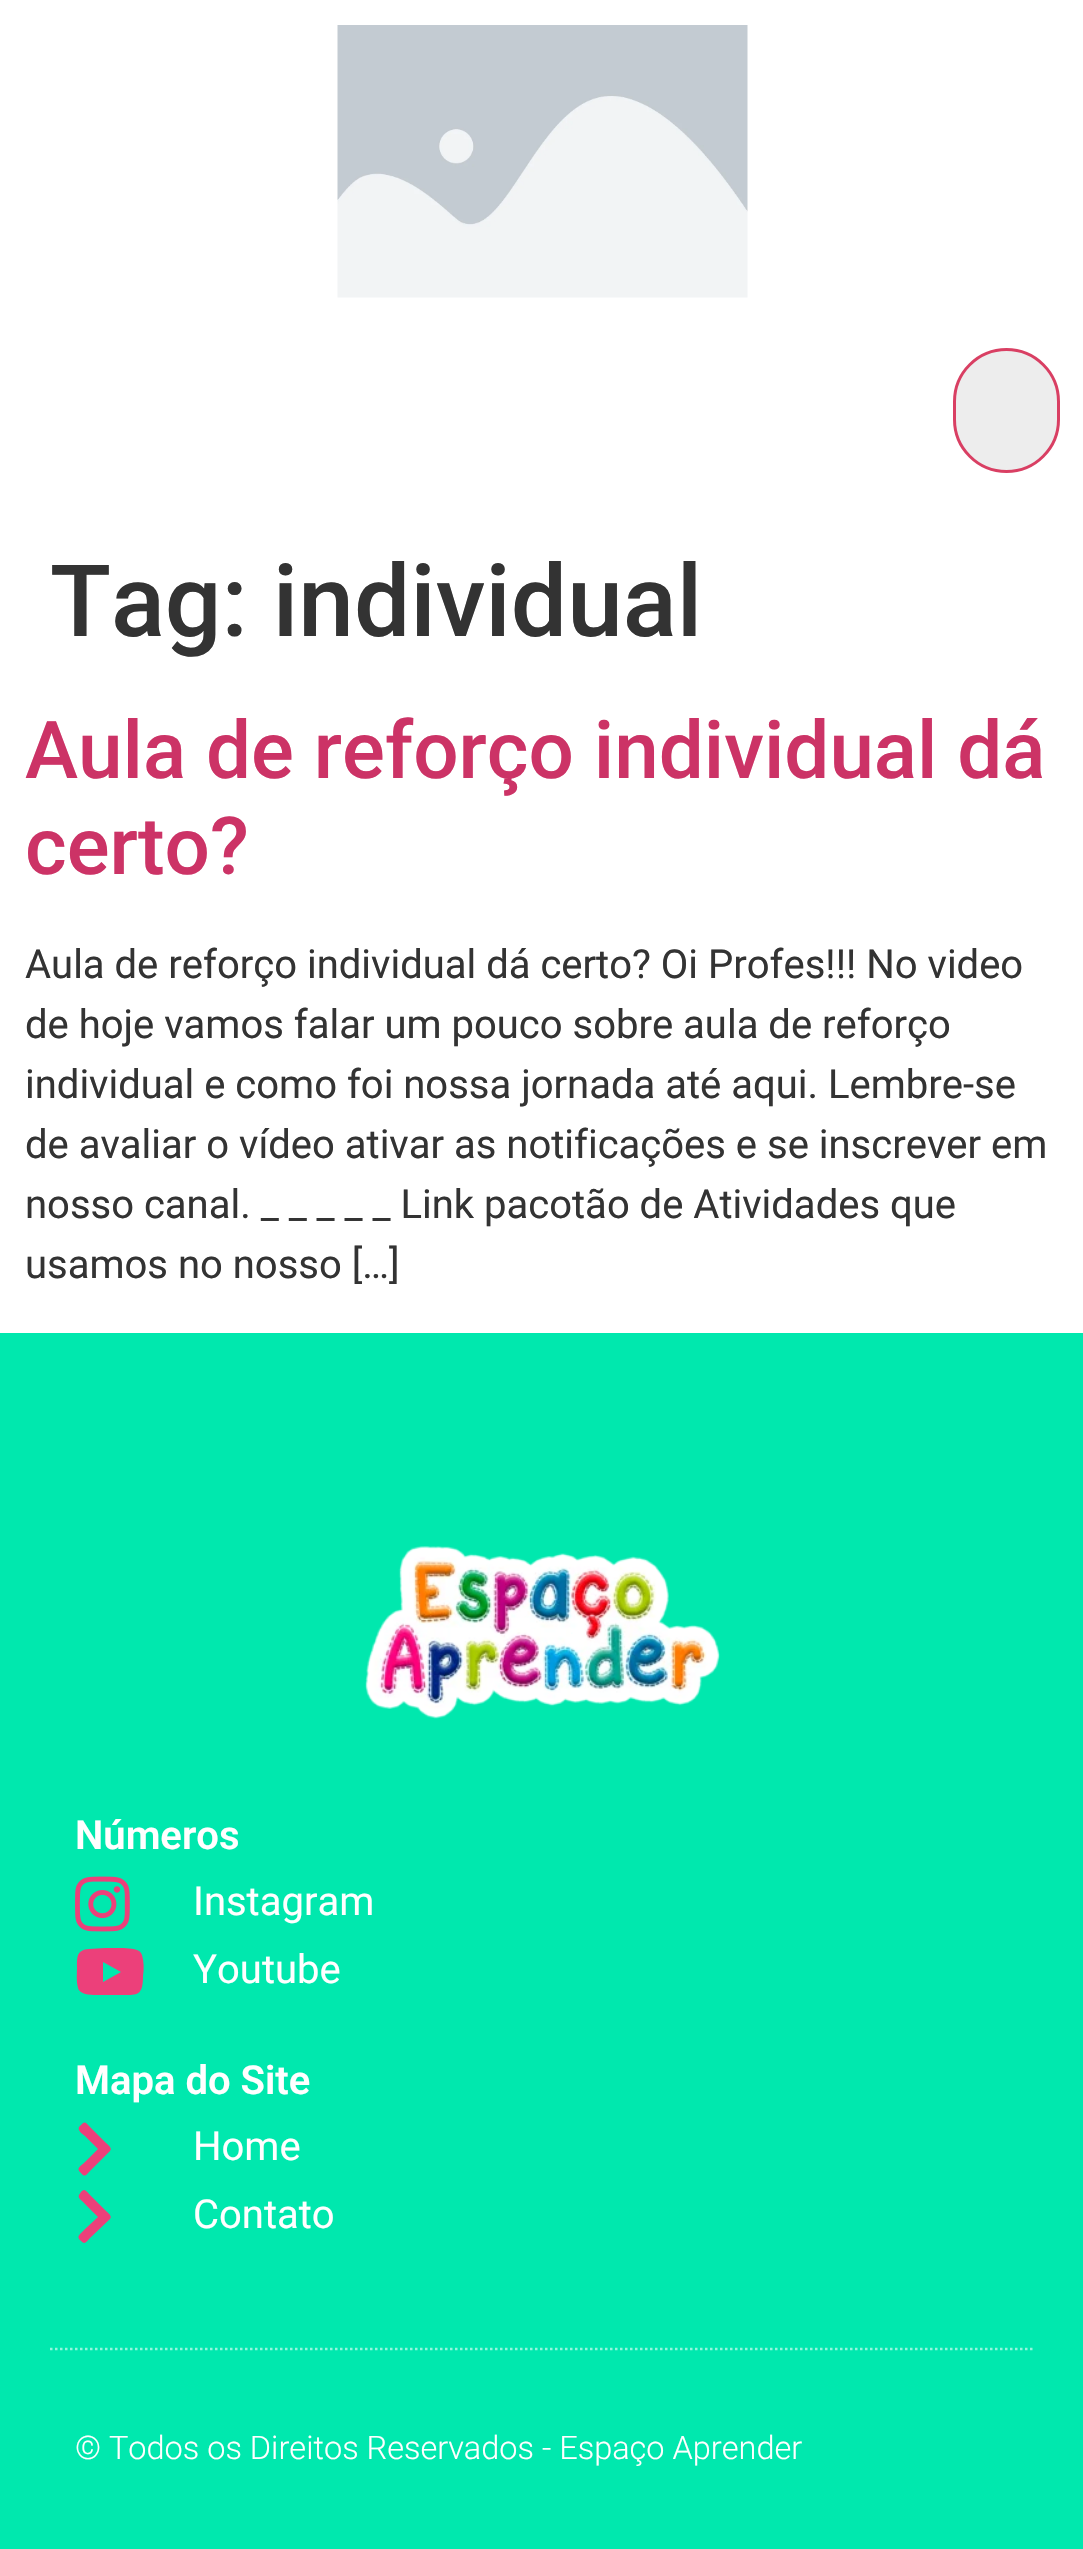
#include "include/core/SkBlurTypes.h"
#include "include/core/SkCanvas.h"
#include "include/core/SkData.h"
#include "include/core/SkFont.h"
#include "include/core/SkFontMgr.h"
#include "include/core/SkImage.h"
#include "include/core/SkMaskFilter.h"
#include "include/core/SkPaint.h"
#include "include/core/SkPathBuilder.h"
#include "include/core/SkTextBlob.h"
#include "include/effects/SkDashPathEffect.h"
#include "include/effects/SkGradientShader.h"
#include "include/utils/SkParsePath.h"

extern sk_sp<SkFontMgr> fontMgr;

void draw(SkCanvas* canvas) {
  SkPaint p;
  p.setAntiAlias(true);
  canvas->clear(SK_ColorWHITE);
  canvas->drawImageRect(SkImages::DeferredFromEncodedData(SkData::MakeFromFileName("images/1.png")), SkRect::MakeLTRB(337, 25, 748, 298), SkSamplingOptions());
  p.setColor(SkColorSetRGB(237, 237, 237));
  canvas->drawRoundRect(SkRect::MakeLTRB(954.5f, 349.5f, 1058.5f, 471.5f), 52, 52, p);
  p.setStyle(SkPaint::kStroke_Style);
  p.setStrokeWidth(3);
  p.setColor(SkColorSetRGB(217, 63, 99));
  canvas->drawRoundRect(SkRect::MakeLTRB(954.5f, 349.5f, 1058.5f, 471.5f), 52, 52, p);
  p.setStyle(SkPaint::kFill_Style);
  p.setColor(SkColorSetRGB(0, 232, 174));
  canvas->drawRect(SkRect::MakeLTRB(0, 1333, 1083, 2549), p);
  canvas->drawImageRect(SkImages::DeferredFromEncodedData(SkData::MakeFromFileName("images/2.png")), SkRect::MakeLTRB(365, 1546, 720, 1719), SkSamplingOptions());
  canvas->drawImageRect(SkImages::DeferredFromEncodedData(SkData::MakeFromFileName("images/3.png")), SkRect::MakeLTRB(75, 1876, 130, 1932), SkSamplingOptions());
  p.setColor(SkColorSetRGB(236, 64, 122));
  canvas->drawPath(SkPathBuilder().moveTo(142, 1955).cubicTo(144, 1962, 144, 1969, 143, 1976).cubicTo(143, 1997, 137, 1995, 118, 1995).lineTo(101, 1995).cubicTo(95, 1995, 80, 1996, 78, 1988).cubicTo(76, 1981, 77, 1974, 77, 1967).cubicTo(77, 1956, 77, 1950, 89, 1949).lineTo(105, 1948).lineTo(124, 1948).cubicTo(130, 1949, 140, 1948, 142, 1955).close().moveTo(103, 1982).lineTo(121, 1972).lineTo(103, 1962).close().detach(), p);
  canvas->drawPath(SkPathBuilder().moveTo(110, 2151).lineTo(90, 2171).cubicTo(86, 2175, 85, 2178, 81, 2173).cubicTo(75, 2168, 81, 2166, 85, 2162).lineTo(98, 2149).lineTo(85, 2136).cubicTo(84, 2135, 77, 2131, 79, 2127).lineTo(81, 2125).cubicTo(85, 2120, 86, 2123, 90, 2127).lineTo(106, 2143).cubicTo(107, 2144, 113, 2148, 110, 2151).close().detach(), p);
  canvas->drawPath(SkPathBuilder().moveTo(110, 2219).lineTo(90, 2238).cubicTo(86, 2242, 85, 2245, 81, 2241).cubicTo(75, 2236, 81, 2234, 85, 2229).lineTo(98, 2217).lineTo(85, 2204).cubicTo(84, 2202, 77, 2198, 79, 2195).lineTo(81, 2192).cubicTo(85, 2188, 86, 2191, 90, 2195).lineTo(106, 2211).cubicTo(107, 2212, 113, 2216, 110, 2219).close().detach(), p);
  p.setStyle(SkPaint::kStroke_Style);
  p.setStrokeWidth(2.5f);
  p.setColor(SkColorSetRGB(150, 246, 222));
  p.setPathEffect(SkDashPathEffect::Make({{2.5f, 2.5f}}, 0));
  canvas->drawPath(SkPathBuilder().moveTo(50, 2349).lineTo(1035, 2349).detach(), p);
  p.setPathEffect(nullptr);
  SkFont font1(fontMgr->matchFamilyStyle("Roboto", SkFontStyle(500, SkFontStyle::kNormal_Width, SkFontStyle::kUpright_Slant)), 100);
  font1.setSubpixel(true);
  p.setStyle(SkPaint::kFill_Style);
  p.setColor(SkColorSetRGB(51, 51, 51));
  canvas->drawString("Tag: individual", 50, 636, font1, p);
  SkFont font2(fontMgr->matchFamilyStyle("Roboto", SkFontStyle(500, SkFontStyle::kNormal_Width, SkFontStyle::kUpright_Slant)), 80);
  font2.setSubpixel(true);
  p.setColor(SkColorSetRGB(204, 51, 102));
  canvas->drawString("Aula de reforço individual dá", 25, 778, font2, p);
  canvas->drawString("certo?", 25, 874, font2, p);
  SkFont font3(fontMgr->matchFamilyStyle("Roboto", SkFontStyle::Normal()), 40);
  font3.setSubpixel(true);
  p.setColor(SkColorSetRGB(51, 51, 51));
  canvas->drawString("Aula de reforço individual dá certo? Oi Profes!!! No video", 25, 978, font3, p);
  canvas->drawString("de hoje vamos falar um pouco sobre aula de reforço", 25, 1038, font3, p);
  canvas->drawString("individual e como foi nossa jornada até aqui. Lembre-se", 25, 1098, font3, p);
  canvas->drawString("de avaliar o vídeo ativar as notificações e se inscrever em", 25, 1158, font3, p);
  canvas->drawString("nosso canal. _ _ _ _ _ Link pacotão de Atividades que", 25, 1218, font3, p);
  canvas->drawString("usamos no nosso […]", 25, 1278, font3, p);
  SkFont font4(fontMgr->matchFamilyStyle("Roboto", SkFontStyle(600, SkFontStyle::kNormal_Width, SkFontStyle::kUpright_Slant)), 40);
  font4.setSubpixel(true);
  p.setColor(SK_ColorWHITE);
  canvas->drawString("Números", 75, 1849, font4, p);
  canvas->drawString("Instagram", 193, 1915, font3, p);
  canvas->drawString("Youtube", 193, 1983, font3, p);
  canvas->drawString("Mapa do Site", 75, 2094, font4, p);
  canvas->drawString("Home", 193, 2160, font3, p);
  canvas->drawString("Contato", 193, 2228, font3, p);
  SkFont font5(fontMgr->matchFamilyStyle("Roboto", SkFontStyle(300, SkFontStyle::kNormal_Width, SkFontStyle::kUpright_Slant)), 32.5f);
  font5.setSubpixel(true);
  canvas->drawString("© Todos os Direitos Reservados - Espaço Aprender", 75, 2459, font5, p);
}
